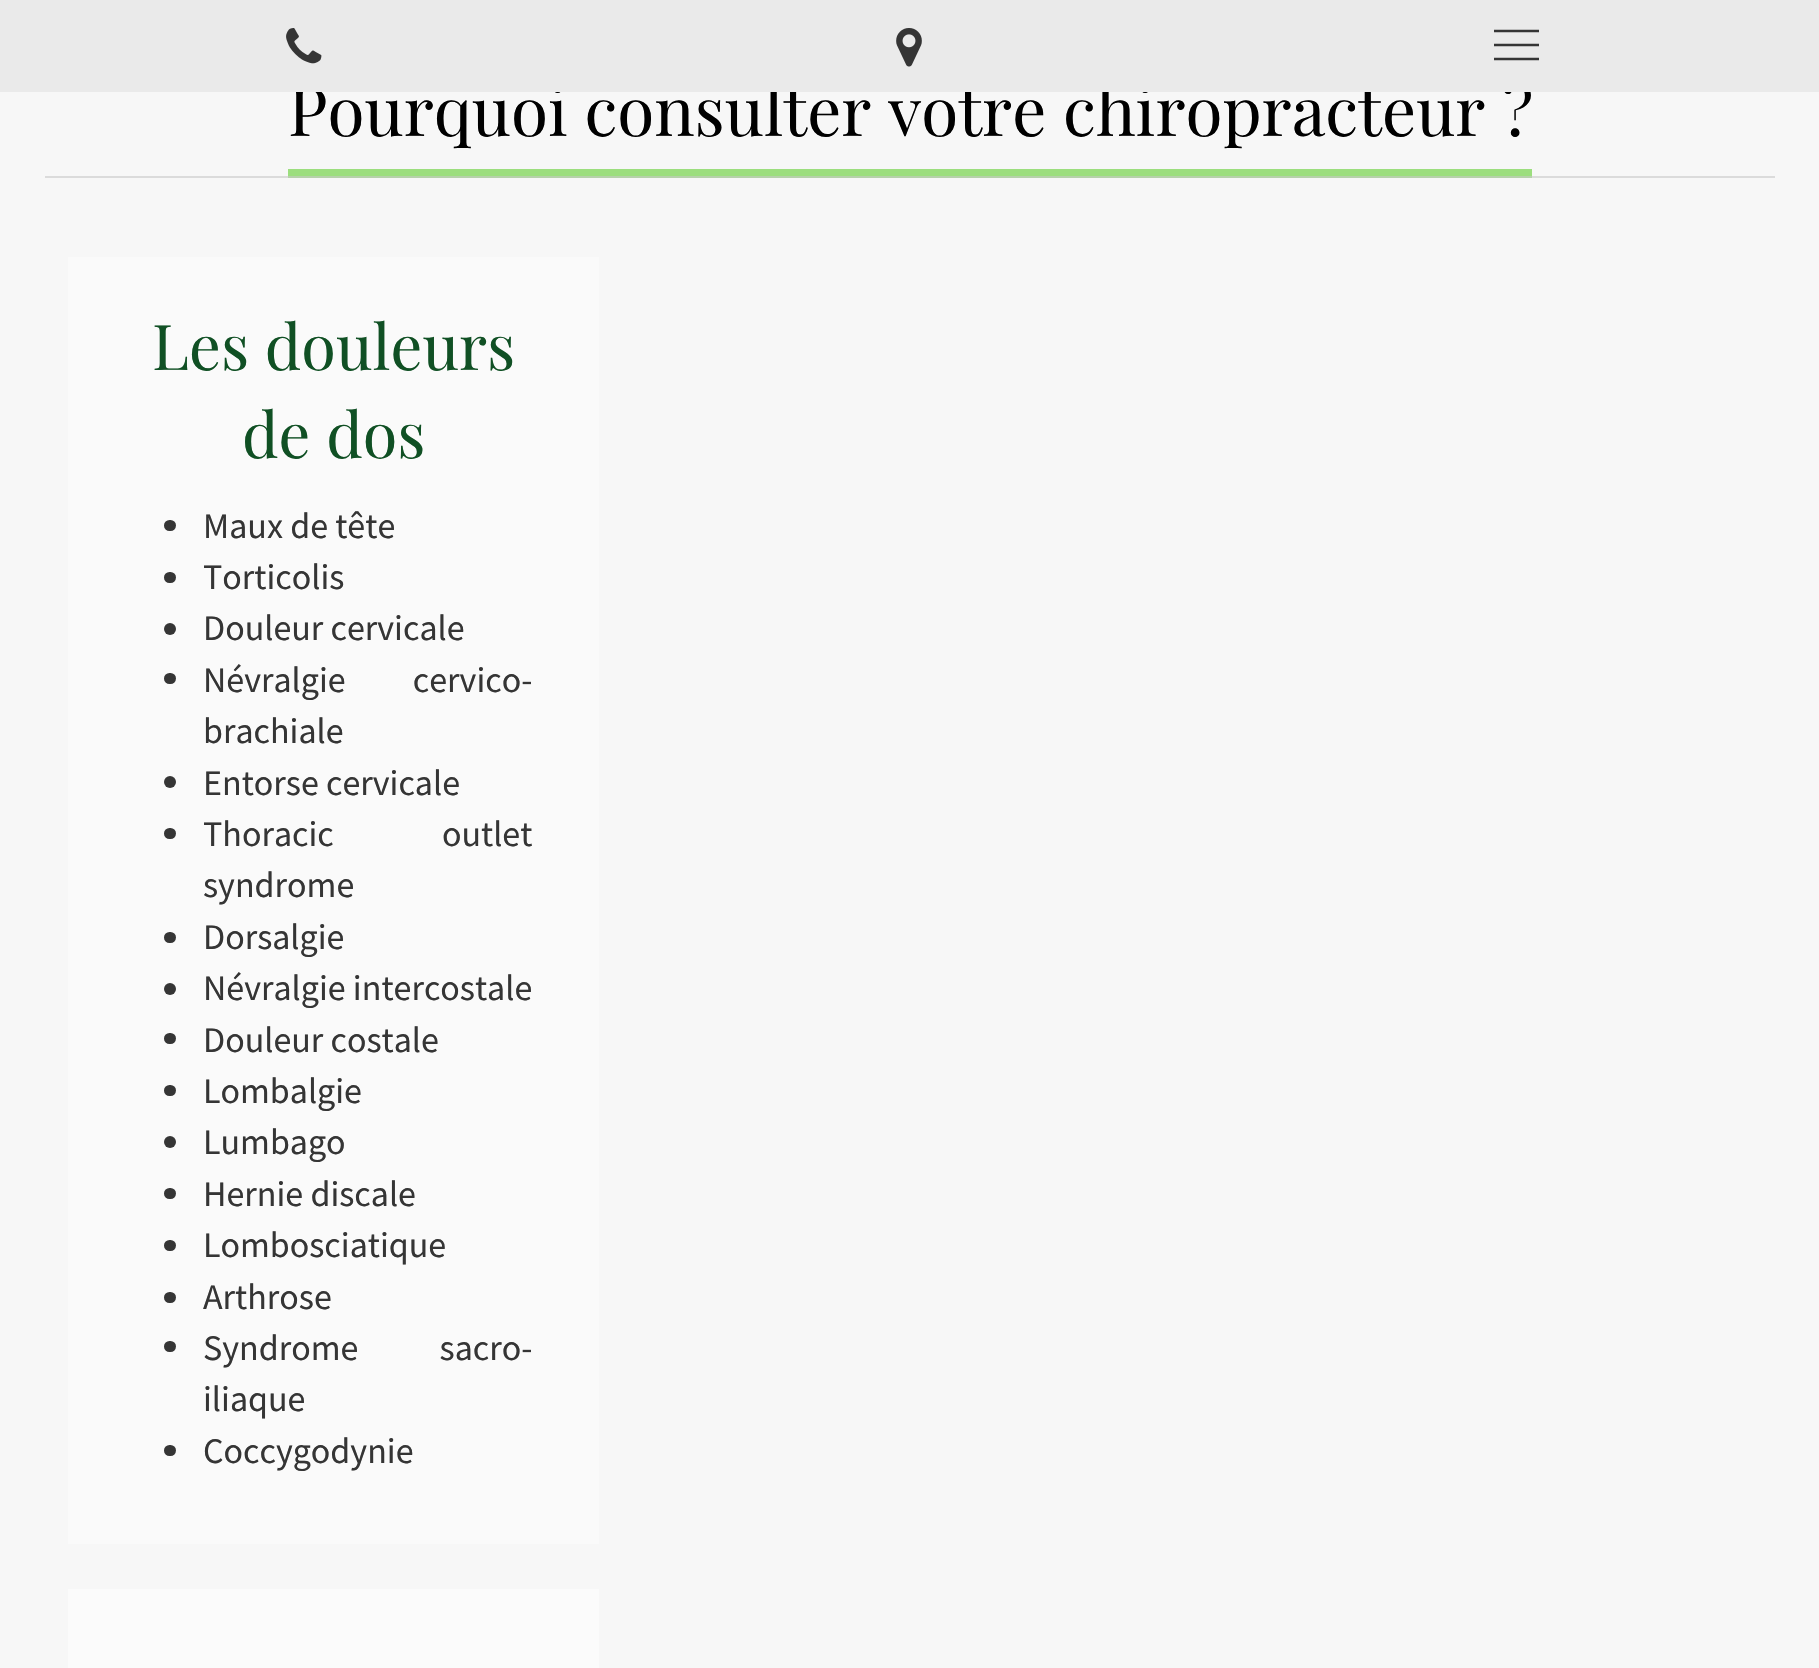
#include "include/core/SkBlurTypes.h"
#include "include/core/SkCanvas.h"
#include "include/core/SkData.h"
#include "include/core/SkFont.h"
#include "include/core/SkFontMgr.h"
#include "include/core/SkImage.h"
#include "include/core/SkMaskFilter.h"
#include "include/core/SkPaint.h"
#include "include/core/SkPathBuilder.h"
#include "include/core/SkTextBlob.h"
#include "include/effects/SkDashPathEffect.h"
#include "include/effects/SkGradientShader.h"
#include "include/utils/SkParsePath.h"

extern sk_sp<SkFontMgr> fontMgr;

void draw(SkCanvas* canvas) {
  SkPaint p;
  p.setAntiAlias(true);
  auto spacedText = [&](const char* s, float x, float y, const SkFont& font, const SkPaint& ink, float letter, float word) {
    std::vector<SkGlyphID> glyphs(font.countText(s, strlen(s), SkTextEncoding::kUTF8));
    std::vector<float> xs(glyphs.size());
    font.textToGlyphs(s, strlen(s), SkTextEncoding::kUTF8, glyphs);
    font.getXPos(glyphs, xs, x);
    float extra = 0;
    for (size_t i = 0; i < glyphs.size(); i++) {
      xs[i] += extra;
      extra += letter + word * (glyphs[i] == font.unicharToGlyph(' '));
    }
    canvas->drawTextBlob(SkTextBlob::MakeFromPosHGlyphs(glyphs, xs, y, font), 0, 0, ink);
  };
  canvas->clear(SkColorSetRGB(247, 247, 247));
  p.setColor(SkColorSetRGB(156, 222, 126));
  canvas->drawRect(SkRect::MakeLTRB(288, 169, 1532, 176), p);
  p.setColor(SkColorSetRGB(219, 219, 219));
  canvas->drawRect(SkRect::MakeLTRB(45, 176, 1775, 178), p);
  p.setColor(SkColorSetRGB(182, 209, 170));
  canvas->drawRect(SkRect::MakeLTRB(288, 176, 1532, 178), p);
  p.setColor(SkColorSetRGB(250, 250, 250));
  canvas->drawRect(SkRect::MakeLTRB(68, 257, 599, 1544), p);
  p.setColor(SkColorSetRGB(53, 53, 53));
  canvas->drawRoundRect(SkRect::MakeLTRB(164, 520, 176, 531), 5.5f, 5.5f, p);
  canvas->drawRoundRect(SkRect::MakeLTRB(164, 572, 176, 583), 5.5f, 5.5f, p);
  canvas->drawCircle(170, 629, 6, p);
  canvas->drawRoundRect(SkRect::MakeLTRB(164, 673, 176, 684), 5.5f, 5.5f, p);
  canvas->drawCircle(170, 782, 6, p);
  canvas->drawRoundRect(SkRect::MakeLTRB(164, 828, 176, 839), 5.5f, 5.5f, p);
  canvas->drawRoundRect(SkRect::MakeLTRB(164, 932, 176, 943), 5.5f, 5.5f, p);
  canvas->drawCircle(170, 989, 6, p);
  canvas->drawRoundRect(SkRect::MakeLTRB(164, 1033, 176, 1044), 5.5f, 5.5f, p);
  canvas->drawRoundRect(SkRect::MakeLTRB(164, 1085, 176, 1096), 5.5f, 5.5f, p);
  canvas->drawCircle(170, 1142, 6, p);
  canvas->drawRoundRect(SkRect::MakeLTRB(164, 1188, 176, 1199), 5.5f, 5.5f, p);
  canvas->drawRoundRect(SkRect::MakeLTRB(164, 1240, 176, 1251), 5.5f, 5.5f, p);
  canvas->drawRoundRect(SkRect::MakeLTRB(164, 1292, 176, 1303), 5.5f, 5.5f, p);
  canvas->drawRoundRect(SkRect::MakeLTRB(164, 1341, 176, 1352), 5.5f, 5.5f, p);
  canvas->drawRoundRect(SkRect::MakeLTRB(164, 1445, 176, 1456), 5.5f, 5.5f, p);
  p.setColor(SkColorSetRGB(251, 251, 251));
  canvas->drawRect(SkRect::MakeLTRB(68, 1589, 599, 1668), p);
  SkFont font1(fontMgr->matchFamilyStyle("Playfair Display", SkFontStyle::Normal()), 67.5f);
  font1.setSubpixel(true);
  p.setColor(SK_ColorBLACK);
  canvas->drawString("Pourquoi consulter votre chiropracteur ?", 288, 136, font1, p);
  p.setColor(SkColorSetRGB(234, 234, 234));
  canvas->drawRect(SkRect::MakeLTRB(0, 0, 1819, 92), p);
  p.setStyle(SkPaint::kStroke_Style);
  p.setStrokeWidth(2.7f);
  p.setColor(SkColorSetRGB(53, 53, 53));
  canvas->drawPath(SkPathBuilder().moveTo(1494, 45).lineTo(1539, 45).moveTo(1494, 31).lineTo(1539, 31).moveTo(1494, 59).lineTo(1539, 59).detach(), p);
  canvas->drawImageRect(SkImages::DeferredFromEncodedData(SkData::MakeFromFileName("images/2.png")), SkRect::MakeLTRB(896, 28, 922, 67), SkSamplingOptions());
  canvas->drawImageRect(SkImages::DeferredFromEncodedData(SkData::MakeFromFileName("images/1.png")), SkRect::MakeLTRB(286, 28, 322, 64), SkSamplingOptions());
  SkFont font2(fontMgr->matchFamilyStyle("Playfair Display", SkFontStyle::Normal()), 63);
  font2.setSubpixel(true);
  p.setStyle(SkPaint::kFill_Style);
  p.setColor(SkColorSetRGB(16, 80, 36));
  canvas->drawString("Les douleurs", 152, 370, font2, p);
  canvas->drawString("de dos", 242, 458, font2, p);
  SkFont font3(fontMgr->matchFamilyStyle("Source Sans Pro", SkFontStyle::Normal()), 36);
  font3.setSubpixel(true);
  p.setColor(SkColorSetRGB(53, 53, 53));
  canvas->drawString("Maux de tête", 203, 538, font3, p);
  canvas->drawString("Torticolis", 203, 589, font3, p);
  canvas->drawString("Douleur cervicale", 203, 640, font3, p);
  spacedText("Névralgie cervico-", 203, 692, font3, p, 0, 60);
  canvas->drawString("brachiale", 203, 743, font3, p);
  canvas->drawString("Entorse cervicale", 203, 795, font3, p);
  spacedText("Thoracic outlet", 203, 846, font3, p, 0, 101);
  canvas->drawString("syndrome", 203, 897, font3, p);
  canvas->drawString("Dorsalgie", 203, 949, font3, p);
  canvas->drawString("Névralgie intercostale", 203, 1000, font3, p);
  canvas->drawString("Douleur costale", 203, 1052, font3, p);
  canvas->drawString("Lombalgie", 203, 1103, font3, p);
  canvas->drawString("Lumbago", 203, 1154, font3, p);
  canvas->drawString("Hernie discale", 203, 1206, font3, p);
  canvas->drawString("Lombosciatique", 203, 1257, font3, p);
  canvas->drawString("Arthrose", 203, 1309, font3, p);
  spacedText("Syndrome sacro-", 203, 1360, font3, p, 0, 74);
  canvas->drawString("iliaque", 203, 1411, font3, p);
  canvas->drawString("Coccygodynie", 203, 1463, font3, p);
}
